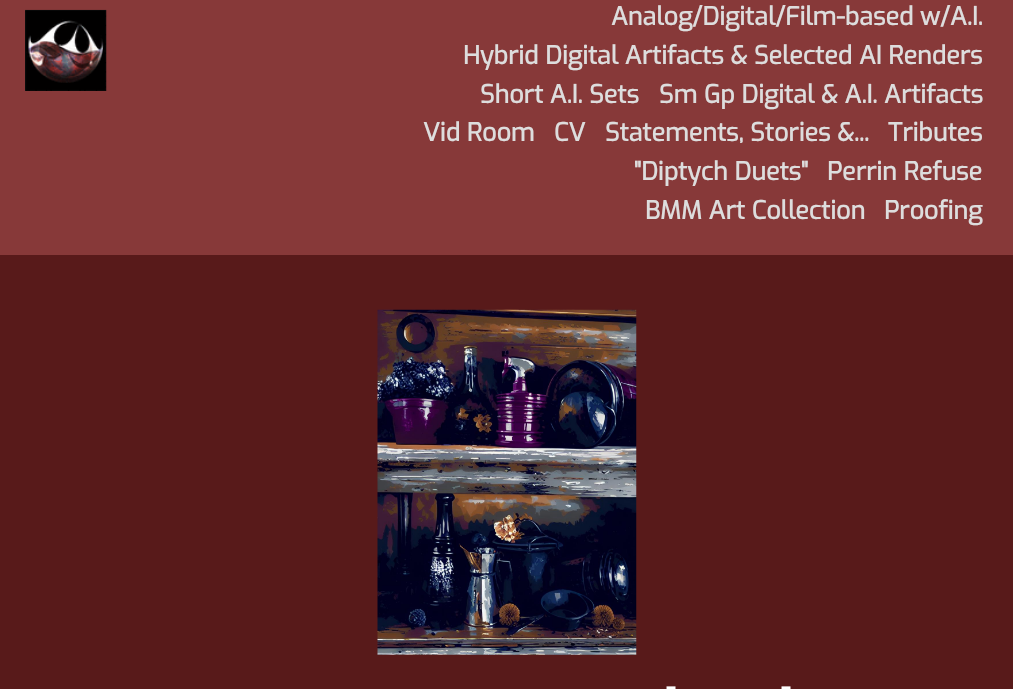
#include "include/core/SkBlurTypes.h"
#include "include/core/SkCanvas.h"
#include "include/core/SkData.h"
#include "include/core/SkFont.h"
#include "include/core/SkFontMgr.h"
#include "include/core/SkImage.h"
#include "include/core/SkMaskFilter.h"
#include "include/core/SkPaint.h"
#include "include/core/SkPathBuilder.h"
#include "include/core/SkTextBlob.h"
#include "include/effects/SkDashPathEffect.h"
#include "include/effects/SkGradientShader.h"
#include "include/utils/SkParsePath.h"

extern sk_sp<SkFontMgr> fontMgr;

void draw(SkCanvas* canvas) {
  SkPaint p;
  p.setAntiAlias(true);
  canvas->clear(SkColorSetRGB(88, 26, 26));
  p.setColor(SkColorSetRGB(135, 57, 57));
  canvas->drawRect(SkRect::MakeLTRB(0, 0, 1013, 255), p);
  canvas->drawImageRect(SkImages::DeferredFromEncodedData(SkData::MakeFromFileName("images/1.png")), SkRect::MakeLTRB(25, 9, 107, 91), SkSamplingOptions());
  canvas->drawImageRect(SkImages::DeferredFromEncodedData(SkData::MakeFromFileName("images/2.png")), SkRect::MakeLTRB(377, 309, 637, 655), SkSamplingOptions());
  SkFont font1(fontMgr->matchFamilyStyle("Exo", SkFontStyle::Bold()), 25);
  font1.setSubpixel(true);
  p.setColor(SkColorSetRGB(221, 221, 221));
  canvas->drawString("Analog/Digital/Film-based w/A.I.", 611, 25, font1, p);
  canvas->drawString("Hybrid Digital Artifacts & Selected AI Renders", 463, 64, font1, p);
  canvas->drawString("Short A.I. Sets", 480, 103, font1, p);
  canvas->drawString("Sm Gp Digital & A.I. Artifacts", 659, 103, font1, p);
  canvas->drawString("Vid Room", 423, 141, font1, p);
  canvas->drawString("CV", 554, 141, font1, p);
  canvas->drawString("Statements, Stories &...", 605, 141, font1, p);
  canvas->drawString("Tributes", 888, 141, font1, p);
  canvas->drawString("\"Diptych Duets\"", 634, 180, font1, p);
  canvas->drawString("Perrin Refuse", 827, 180, font1, p);
  canvas->drawString("BMM Art Collection", 645, 219, font1, p);
  canvas->drawString("Proofing", 884, 219, font1, p);
  SkFont font2(fontMgr->matchFamilyStyle("Exo", SkFontStyle::Bold()), 27);
  font2.setSubpixel(true);
  p.setColor(SK_ColorWHITE);
  canvas->drawString("-", 666, 696, font2, p);
  canvas->drawString("-", 781, 696, font2, p);
}
